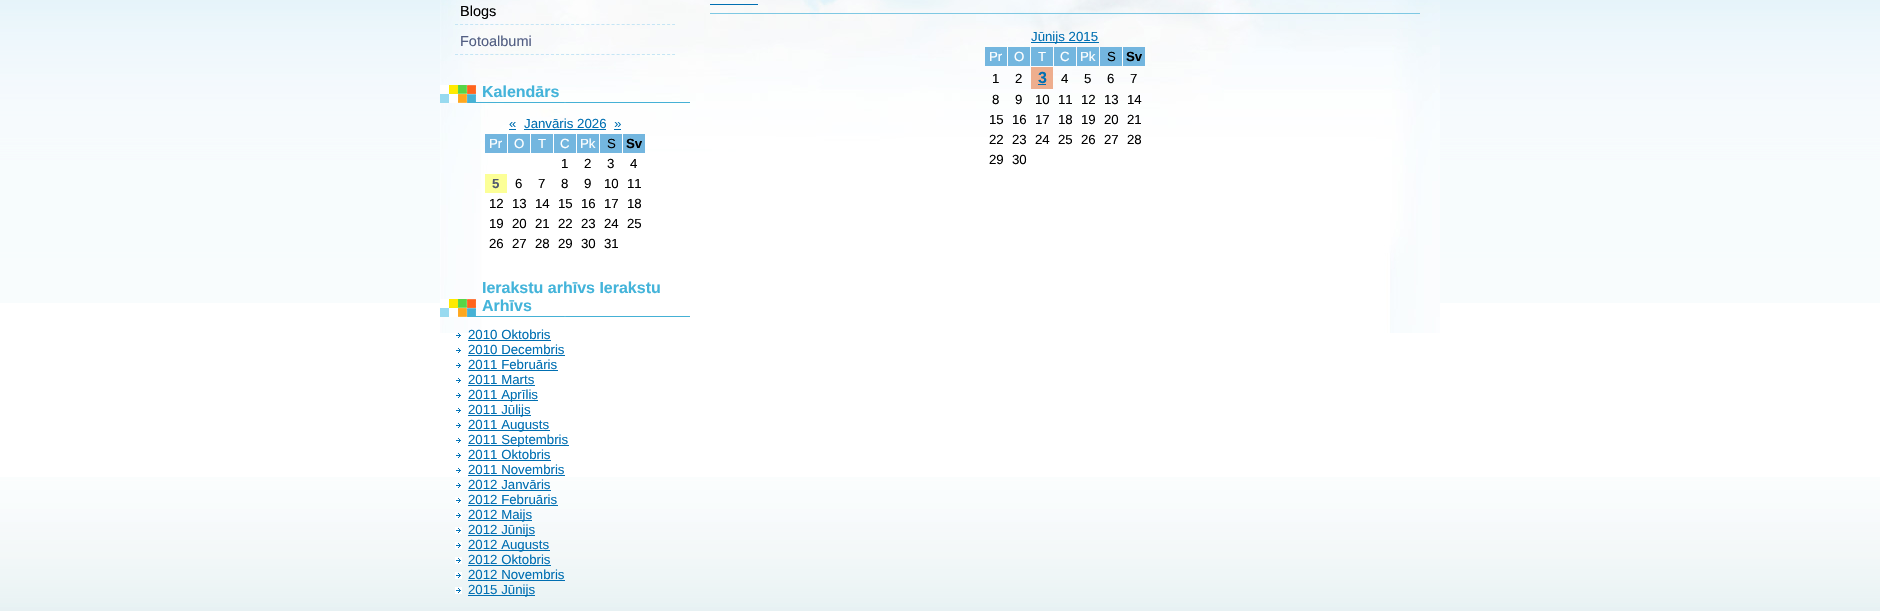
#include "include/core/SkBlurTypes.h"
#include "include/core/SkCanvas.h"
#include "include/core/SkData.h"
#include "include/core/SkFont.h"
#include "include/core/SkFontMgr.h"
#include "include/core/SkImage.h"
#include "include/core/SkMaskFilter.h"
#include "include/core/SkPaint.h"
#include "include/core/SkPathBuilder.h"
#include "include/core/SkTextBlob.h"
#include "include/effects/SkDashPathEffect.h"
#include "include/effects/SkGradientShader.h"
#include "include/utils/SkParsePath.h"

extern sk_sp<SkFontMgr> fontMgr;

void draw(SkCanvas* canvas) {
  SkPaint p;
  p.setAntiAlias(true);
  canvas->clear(SK_ColorWHITE);
  canvas->drawImageRect(SkImages::DeferredFromEncodedData(SkData::MakeFromFileName("images/1.png")), SkRect::MakeLTRB(0, 0, 1880, 303), SkSamplingOptions());
  canvas->drawImageRect(SkImages::DeferredFromEncodedData(SkData::MakeFromFileName("images/2.png")), SkRect::MakeLTRB(0, 477, 1880, 611), SkSamplingOptions());
  canvas->drawImageRect(SkImages::DeferredFromEncodedData(SkData::MakeFromFileName("images/3.png")), SkRect::MakeLTRB(440, 0, 1440, 333), SkSamplingOptions());
  p.setStyle(SkPaint::kStroke_Style);
  p.setStrokeWidth(1);
  p.setColor(SkColorSetRGB(197, 229, 245));
  p.setPathEffect(SkDashPathEffect::Make({{3, 2.05f}}, 0));
  canvas->drawPath(SkPathBuilder().moveTo(455, 24.5f).lineTo(675, 24.5f).detach(), p);
  p.setPathEffect(nullptr);
  p.setPathEffect(SkDashPathEffect::Make({{3, 2.05f}}, 0));
  canvas->drawPath(SkPathBuilder().moveTo(455, 54.5f).lineTo(675, 54.5f).detach(), p);
  p.setPathEffect(nullptr);
  canvas->drawImageRect(SkImages::DeferredFromEncodedData(SkData::MakeFromFileName("images/4.png")), SkRect::MakeLTRB(440, 85, 690, 103), SkSamplingOptions());
  p.setStyle(SkPaint::kFill_Style);
  p.setColor(SkColorSetRGB(0, 111, 178));
  canvas->drawRect(SkRect::MakeLTRB(509, 129, 516, 130), p);
  canvas->drawRect(SkRect::MakeLTRB(524, 129, 606, 130), p);
  canvas->drawRect(SkRect::MakeLTRB(614, 129, 621, 130), p);
  p.setColor(SkColorSetRGB(115, 182, 223));
  canvas->drawRect(SkRect::MakeLTRB(485, 134, 507, 153), p);
  canvas->drawRect(SkRect::MakeLTRB(508, 134, 530, 153), p);
  canvas->drawRect(SkRect::MakeLTRB(531, 134, 553, 153), p);
  canvas->drawRect(SkRect::MakeLTRB(554, 134, 576, 153), p);
  canvas->drawRect(SkRect::MakeLTRB(577, 134, 599, 153), p);
  canvas->drawRect(SkRect::MakeLTRB(600, 134, 622, 153), p);
  canvas->drawRect(SkRect::MakeLTRB(623, 134, 645, 153), p);
  p.setColor(SkColorSetRGB(252, 255, 151));
  canvas->drawRect(SkRect::MakeLTRB(485, 174, 507, 193), p);
  canvas->drawImageRect(SkImages::DeferredFromEncodedData(SkData::MakeFromFileName("images/5.png")), SkRect::MakeLTRB(440, 299, 690, 317), SkSamplingOptions());
  canvas->drawImageRect(SkImages::DeferredFromEncodedData(SkData::MakeFromFileName("images/6.png")), SkRect::MakeLTRB(456, 333, 461, 338), SkSamplingOptions());
  p.setColor(SkColorSetRGB(0, 111, 178));
  canvas->drawRect(SkRect::MakeLTRB(468, 340, 551, 341), p);
  canvas->drawImageRect(SkImages::DeferredFromEncodedData(SkData::MakeFromFileName("images/6.png")), SkRect::MakeLTRB(456, 348, 461, 353), SkSamplingOptions());
  canvas->drawRect(SkRect::MakeLTRB(468, 355, 565, 356), p);
  canvas->drawImageRect(SkImages::DeferredFromEncodedData(SkData::MakeFromFileName("images/6.png")), SkRect::MakeLTRB(456, 363, 461, 368), SkSamplingOptions());
  canvas->drawRect(SkRect::MakeLTRB(468, 370, 558, 371), p);
  canvas->drawImageRect(SkImages::DeferredFromEncodedData(SkData::MakeFromFileName("images/6.png")), SkRect::MakeLTRB(456, 378, 461, 383), SkSamplingOptions());
  canvas->drawRect(SkRect::MakeLTRB(468, 385, 535, 386), p);
  canvas->drawImageRect(SkImages::DeferredFromEncodedData(SkData::MakeFromFileName("images/6.png")), SkRect::MakeLTRB(456, 393, 461, 398), SkSamplingOptions());
  canvas->drawRect(SkRect::MakeLTRB(468, 400, 538, 401), p);
  canvas->drawImageRect(SkImages::DeferredFromEncodedData(SkData::MakeFromFileName("images/6.png")), SkRect::MakeLTRB(456, 408, 461, 413), SkSamplingOptions());
  canvas->drawRect(SkRect::MakeLTRB(468, 415, 531, 416), p);
  canvas->drawImageRect(SkImages::DeferredFromEncodedData(SkData::MakeFromFileName("images/6.png")), SkRect::MakeLTRB(456, 423, 461, 428), SkSamplingOptions());
  canvas->drawRect(SkRect::MakeLTRB(468, 430, 550, 431), p);
  canvas->drawImageRect(SkImages::DeferredFromEncodedData(SkData::MakeFromFileName("images/6.png")), SkRect::MakeLTRB(456, 438, 461, 443), SkSamplingOptions());
  canvas->drawRect(SkRect::MakeLTRB(468, 445, 569, 446), p);
  canvas->drawImageRect(SkImages::DeferredFromEncodedData(SkData::MakeFromFileName("images/6.png")), SkRect::MakeLTRB(456, 453, 461, 458), SkSamplingOptions());
  canvas->drawRect(SkRect::MakeLTRB(468, 460, 551, 461), p);
  canvas->drawImageRect(SkImages::DeferredFromEncodedData(SkData::MakeFromFileName("images/6.png")), SkRect::MakeLTRB(456, 468, 461, 473), SkSamplingOptions());
  canvas->drawRect(SkRect::MakeLTRB(468, 475, 565, 476), p);
  canvas->drawImageRect(SkImages::DeferredFromEncodedData(SkData::MakeFromFileName("images/7.png")), SkRect::MakeLTRB(455, 482, 462, 489), SkSamplingOptions());
  canvas->drawRect(SkRect::MakeLTRB(468, 490, 551, 491), p);
  canvas->drawImageRect(SkImages::DeferredFromEncodedData(SkData::MakeFromFileName("images/7.png")), SkRect::MakeLTRB(455, 497, 462, 504), SkSamplingOptions());
  canvas->drawRect(SkRect::MakeLTRB(468, 505, 558, 506), p);
  canvas->drawImageRect(SkImages::DeferredFromEncodedData(SkData::MakeFromFileName("images/7.png")), SkRect::MakeLTRB(455, 512, 462, 519), SkSamplingOptions());
  canvas->drawRect(SkRect::MakeLTRB(468, 520, 532, 521), p);
  canvas->drawImageRect(SkImages::DeferredFromEncodedData(SkData::MakeFromFileName("images/7.png")), SkRect::MakeLTRB(455, 527, 462, 534), SkSamplingOptions());
  canvas->drawRect(SkRect::MakeLTRB(468, 535, 535, 536), p);
  canvas->drawImageRect(SkImages::DeferredFromEncodedData(SkData::MakeFromFileName("images/7.png")), SkRect::MakeLTRB(455, 542, 462, 549), SkSamplingOptions());
  canvas->drawRect(SkRect::MakeLTRB(468, 550, 550, 551), p);
  canvas->drawImageRect(SkImages::DeferredFromEncodedData(SkData::MakeFromFileName("images/7.png")), SkRect::MakeLTRB(455, 557, 462, 564), SkSamplingOptions());
  canvas->drawRect(SkRect::MakeLTRB(468, 565, 551, 566), p);
  canvas->drawImageRect(SkImages::DeferredFromEncodedData(SkData::MakeFromFileName("images/7.png")), SkRect::MakeLTRB(455, 572, 462, 579), SkSamplingOptions());
  canvas->drawRect(SkRect::MakeLTRB(468, 580, 565, 581), p);
  canvas->drawImageRect(SkImages::DeferredFromEncodedData(SkData::MakeFromFileName("images/7.png")), SkRect::MakeLTRB(455, 587, 462, 594), SkSamplingOptions());
  canvas->drawRect(SkRect::MakeLTRB(468, 595, 535, 596), p);
  canvas->drawRect(SkRect::MakeLTRB(710, 4, 758, 5), p);
  p.setColor(SkColorSetRGB(126, 200, 227));
  canvas->drawRect(SkRect::MakeLTRB(710, 13, 1420, 14), p);
  p.setColor(SkColorSetRGB(0, 111, 178));
  canvas->drawRect(SkRect::MakeLTRB(1031, 42, 1099, 43), p);
  p.setColor(SkColorSetRGB(115, 182, 223));
  canvas->drawRect(SkRect::MakeLTRB(985, 47, 1007, 66), p);
  canvas->drawRect(SkRect::MakeLTRB(1008, 47, 1030, 66), p);
  canvas->drawRect(SkRect::MakeLTRB(1031, 47, 1053, 66), p);
  canvas->drawRect(SkRect::MakeLTRB(1054, 47, 1076, 66), p);
  canvas->drawRect(SkRect::MakeLTRB(1077, 47, 1099, 66), p);
  canvas->drawRect(SkRect::MakeLTRB(1100, 47, 1122, 66), p);
  canvas->drawRect(SkRect::MakeLTRB(1123, 47, 1145, 66), p);
  p.setColor(SkColorSetRGB(238, 174, 142));
  canvas->drawRect(SkRect::MakeLTRB(1031, 67, 1053, 89), p);
  p.setColor(SkColorSetRGB(0, 111, 178));
  canvas->drawRect(SkRect::MakeLTRB(1038, 84, 1046, 85), p);
  SkFont font1(fontMgr->matchFamilyStyle("Liberation Sans", SkFontStyle::Normal()), 14.5f);
  font1.setSubpixel(true);
  p.setColor(SK_ColorBLACK);
  canvas->drawString("Blogs", 460, 16, font1, p);
  p.setColor(SkColorSetRGB(82, 94, 131));
  canvas->drawString("Fotoalbumi", 460, 46, font1, p);
  SkFont font2(fontMgr->matchFamilyStyle("Liberation Sans", SkFontStyle::Bold()), 16);
  font2.setSubpixel(true);
  p.setColor(SkColorSetRGB(68, 180, 218));
  canvas->drawString("Kalendārs", 482, 97, font2, p);
  SkFont font3(fontMgr->matchFamilyStyle("Liberation Sans", SkFontStyle::Normal()), 13.25f);
  font3.setSubpixel(true);
  p.setColor(SkColorSetRGB(0, 111, 178));
  canvas->drawString("«", 509, 128, font3, p);
  canvas->drawString("Janvāris 2026", 524, 128, font3, p);
  canvas->drawString("»", 614, 128, font3, p);
  p.setColor(SK_ColorWHITE);
  canvas->drawString("Pr", 489, 148, font3, p);
  canvas->drawString("O", 514, 148, font3, p);
  canvas->drawString("T", 538, 148, font3, p);
  canvas->drawString("C", 560, 148, font3, p);
  canvas->drawString("Pk", 580, 148, font3, p);
  p.setColor(SK_ColorBLACK);
  canvas->drawString("S", 607, 148, font3, p);
  SkFont font4(fontMgr->matchFamilyStyle("Liberation Sans", SkFontStyle::Bold()), 13.25f);
  font4.setSubpixel(true);
  canvas->drawString("Sv", 626, 148, font4, p);
  canvas->drawString("1", 561, 168, font3, p);
  canvas->drawString("2", 584, 168, font3, p);
  canvas->drawString("3", 607, 168, font3, p);
  canvas->drawString("4", 630, 168, font3, p);
  p.setColor(SkColorSetRGB(82, 89, 111));
  canvas->drawString("5", 492, 188, font4, p);
  p.setColor(SK_ColorBLACK);
  canvas->drawString("6", 515, 188, font3, p);
  canvas->drawString("7", 538, 188, font3, p);
  canvas->drawString("8", 561, 188, font3, p);
  canvas->drawString("9", 584, 188, font3, p);
  canvas->drawString("10", 604, 188, font3, p);
  canvas->drawString("11", 627, 188, font3, p);
  canvas->drawString("12", 489, 208, font3, p);
  canvas->drawString("13", 512, 208, font3, p);
  canvas->drawString("14", 535, 208, font3, p);
  canvas->drawString("15", 558, 208, font3, p);
  canvas->drawString("16", 581, 208, font3, p);
  canvas->drawString("17", 604, 208, font3, p);
  canvas->drawString("18", 627, 208, font3, p);
  canvas->drawString("19", 489, 228, font3, p);
  canvas->drawString("20", 512, 228, font3, p);
  canvas->drawString("21", 535, 228, font3, p);
  canvas->drawString("22", 558, 228, font3, p);
  canvas->drawString("23", 581, 228, font3, p);
  canvas->drawString("24", 604, 228, font3, p);
  canvas->drawString("25", 627, 228, font3, p);
  canvas->drawString("26", 489, 248, font3, p);
  canvas->drawString("27", 512, 248, font3, p);
  canvas->drawString("28", 535, 248, font3, p);
  canvas->drawString("29", 558, 248, font3, p);
  canvas->drawString("30", 581, 248, font3, p);
  canvas->drawString("31", 604, 248, font3, p);
  p.setColor(SkColorSetRGB(68, 180, 218));
  canvas->drawString("Ierakstu arhīvs Ierakstu", 482, 293, font2, p);
  canvas->drawString("Arhīvs", 482, 311, font2, p);
  p.setColor(SkColorSetRGB(0, 111, 178));
  canvas->drawString("2010 Oktobris", 468, 339, font3, p);
  canvas->drawString("2010 Decembris", 468, 354, font3, p);
  canvas->drawString("2011 Februāris", 468, 369, font3, p);
  canvas->drawString("2011 Marts", 468, 384, font3, p);
  canvas->drawString("2011 Aprīlis", 468, 399, font3, p);
  canvas->drawString("2011 Jūlijs", 468, 414, font3, p);
  canvas->drawString("2011 Augusts", 468, 429, font3, p);
  canvas->drawString("2011 Septembris", 468, 444, font3, p);
  canvas->drawString("2011 Oktobris", 468, 459, font3, p);
  canvas->drawString("2011 Novembris", 468, 474, font3, p);
  canvas->drawString("2012 Janvāris", 468, 489, font3, p);
  canvas->drawString("2012 Februāris", 468, 504, font3, p);
  canvas->drawString("2012 Maijs", 468, 519, font3, p);
  canvas->drawString("2012 Jūnijs", 468, 534, font3, p);
  canvas->drawString("2012 Augusts", 468, 549, font3, p);
  canvas->drawString("2012 Oktobris", 468, 564, font3, p);
  canvas->drawString("2012 Novembris", 468, 579, font3, p);
  canvas->drawString("2015 Jūnijs", 468, 594, font3, p);
  canvas->drawString("Jūnijs 2015", 1031, 41, font3, p);
  p.setColor(SK_ColorWHITE);
  canvas->drawString("Pr", 989, 61, font3, p);
  canvas->drawString("O", 1014, 61, font3, p);
  canvas->drawString("T", 1038, 61, font3, p);
  canvas->drawString("C", 1060, 61, font3, p);
  canvas->drawString("Pk", 1080, 61, font3, p);
  p.setColor(SK_ColorBLACK);
  canvas->drawString("S", 1107, 61, font3, p);
  canvas->drawString("Sv", 1126, 61, font4, p);
  canvas->drawString("1", 992, 83, font3, p);
  canvas->drawString("2", 1015, 83, font3, p);
  p.setColor(SkColorSetRGB(0, 111, 178));
  canvas->drawString("3", 1038, 83, font2, p);
  p.setColor(SK_ColorBLACK);
  canvas->drawString("4", 1061, 83, font3, p);
  canvas->drawString("5", 1084, 83, font3, p);
  canvas->drawString("6", 1107, 83, font3, p);
  canvas->drawString("7", 1130, 83, font3, p);
  canvas->drawString("8", 992, 104, font3, p);
  canvas->drawString("9", 1015, 104, font3, p);
  canvas->drawString("10", 1035, 104, font3, p);
  canvas->drawString("11", 1058, 104, font3, p);
  canvas->drawString("12", 1081, 104, font3, p);
  canvas->drawString("13", 1104, 104, font3, p);
  canvas->drawString("14", 1127, 104, font3, p);
  canvas->drawString("15", 989, 124, font3, p);
  canvas->drawString("16", 1012, 124, font3, p);
  canvas->drawString("17", 1035, 124, font3, p);
  canvas->drawString("18", 1058, 124, font3, p);
  canvas->drawString("19", 1081, 124, font3, p);
  canvas->drawString("20", 1104, 124, font3, p);
  canvas->drawString("21", 1127, 124, font3, p);
  canvas->drawString("22", 989, 144, font3, p);
  canvas->drawString("23", 1012, 144, font3, p);
  canvas->drawString("24", 1035, 144, font3, p);
  canvas->drawString("25", 1058, 144, font3, p);
  canvas->drawString("26", 1081, 144, font3, p);
  canvas->drawString("27", 1104, 144, font3, p);
  canvas->drawString("28", 1127, 144, font3, p);
  canvas->drawString("29", 989, 164, font3, p);
  canvas->drawString("30", 1012, 164, font3, p);
}
